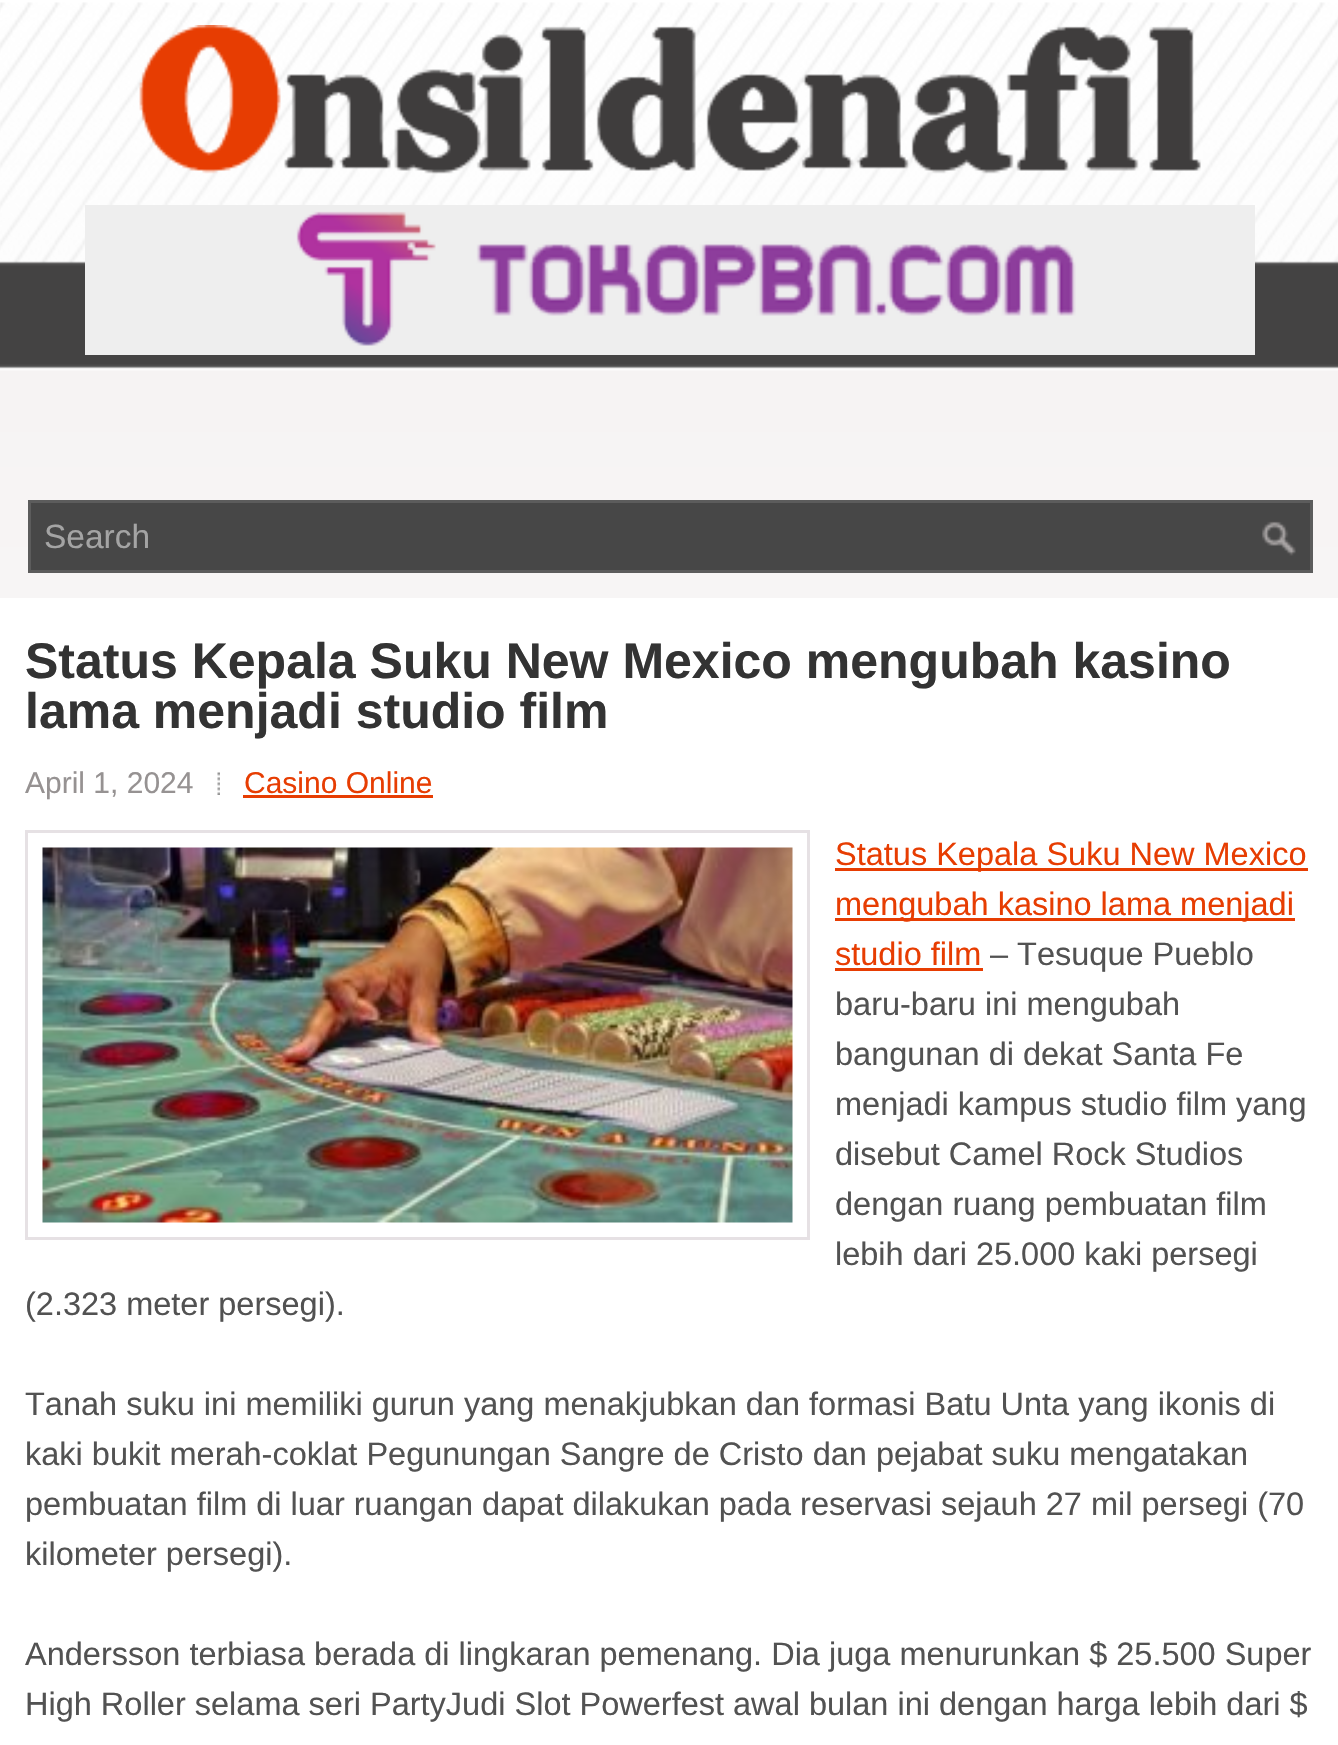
#include "include/core/SkBlurTypes.h"
#include "include/core/SkCanvas.h"
#include "include/core/SkData.h"
#include "include/core/SkFont.h"
#include "include/core/SkFontMgr.h"
#include "include/core/SkImage.h"
#include "include/core/SkMaskFilter.h"
#include "include/core/SkPaint.h"
#include "include/core/SkPathBuilder.h"
#include "include/core/SkTextBlob.h"
#include "include/effects/SkDashPathEffect.h"
#include "include/effects/SkGradientShader.h"
#include "include/utils/SkParsePath.h"

extern sk_sp<SkFontMgr> fontMgr;

void draw(SkCanvas* canvas) {
  SkPaint p;
  p.setAntiAlias(true);
  canvas->clear(SK_ColorWHITE);
  canvas->drawImageRect(SkImages::DeferredFromEncodedData(SkData::MakeFromFileName("images/1.png")), SkRect::MakeLTRB(0, 2, 1338, 598), SkSamplingOptions());
  canvas->drawImageRect(SkImages::DeferredFromEncodedData(SkData::MakeFromFileName("images/2.png")), SkRect::MakeLTRB(139, 25, 1201, 174), SkSamplingOptions());
  canvas->drawImageRect(SkImages::DeferredFromEncodedData(SkData::MakeFromFileName("images/3.png")), SkRect::MakeLTRB(85, 205, 1255, 355), SkSamplingOptions());
  p.setColor(SkColorSetRGB(71, 71, 71));
  canvas->drawRect(SkRect::MakeLTRB(31, 503, 1310, 570), p);
  canvas->drawImageRect(SkImages::DeferredFromEncodedData(SkData::MakeFromFileName("images/4.png")), SkRect::MakeLTRB(1262, 521, 1296, 556), SkSamplingOptions());
  p.setStyle(SkPaint::kStroke_Style);
  p.setStrokeWidth(3);
  p.setColor(SkColorSetRGB(92, 92, 92));
  canvas->drawRect(SkRect::MakeLTRB(29.5f, 501.5f, 1311.5f, 571.5f), p);
  canvas->drawImageRect(SkImages::DeferredFromEncodedData(SkData::MakeFromFileName("images/5.png")), SkRect::MakeLTRB(217, 772, 220, 795), SkSamplingOptions());
  p.setStyle(SkPaint::kFill_Style);
  p.setColor(SkColorSetRGB(231, 61, 2));
  canvas->drawRect(SkRect::MakeLTRB(243, 795, 433, 798), p);
  p.setStyle(SkPaint::kStroke_Style);
  p.setColor(SkColorSetRGB(230, 225, 228));
  canvas->drawRect(SkRect::MakeLTRB(26.5f, 831.5f, 808.5f, 1238.5f), p);
  canvas->drawImageRect(SkImages::DeferredFromEncodedData(SkData::MakeFromFileName("images/6.png")), SkRect::MakeLTRB(42, 847, 793, 1223), SkSamplingOptions());
  p.setStyle(SkPaint::kFill_Style);
  p.setColor(SkColorSetRGB(231, 61, 2));
  canvas->drawRect(SkRect::MakeLTRB(835, 868, 1308, 871), p);
  canvas->drawRect(SkRect::MakeLTRB(835, 918, 1295, 921), p);
  canvas->drawRect(SkRect::MakeLTRB(835, 968, 983, 971), p);
  SkFont font1(fontMgr->matchFamilyStyle("Liberation Sans", SkFontStyle::Normal()), 33.5f);
  font1.setSubpixel(true);
  p.setColor(SkColorSetRGB(164, 164, 164));
  canvas->drawString("Search", 44, 548, font1, p);
  SkFont font2(fontMgr->matchFamilyStyle("Liberation Sans", SkFontStyle::Bold()), 50);
  font2.setSubpixel(true);
  p.setColor(SkColorSetRGB(51, 51, 51));
  canvas->drawString("Status Kepala Suku New Mexico mengubah kasino", 25, 678, font2, p);
  canvas->drawString("lama menjadi studio film", 25, 728, font2, p);
  SkFont font3(fontMgr->matchFamilyStyle("Liberation Sans", SkFontStyle::Normal()), 30);
  font3.setSubpixel(true);
  p.setColor(SkColorSetRGB(150, 146, 146));
  canvas->drawString("April 1, 2024", 25, 793, font3, p);
  p.setColor(SkColorSetRGB(231, 61, 2));
  canvas->drawString("Casino Online", 244, 793, font3, p);
  SkFont font4(fontMgr->matchFamilyStyle("Liberation Sans", SkFontStyle::Normal()), 32.5f);
  font4.setSubpixel(true);
  canvas->drawString("Status Kepala Suku New Mexico", 835, 865, font4, p);
  canvas->drawString("mengubah kasino lama menjadi", 835, 915, font4, p);
  canvas->drawString("studio film", 835, 965, font4, p);
  p.setColor(SkColorSetRGB(82, 82, 82));
  canvas->drawString("– Tesuque Pueblo", 990, 965, font4, p);
  canvas->drawString("baru-baru ini mengubah", 835, 1015, font4, p);
  canvas->drawString("bangunan di dekat Santa Fe", 835, 1065, font4, p);
  canvas->drawString("menjadi kampus studio film yang", 835, 1115, font4, p);
  canvas->drawString("disebut Camel Rock Studios", 835, 1165, font4, p);
  canvas->drawString("dengan ruang pembuatan film", 835, 1215, font4, p);
  canvas->drawString("lebih dari 25.000 kaki persegi", 835, 1265, font4, p);
  canvas->drawString("(2.323 meter persegi).", 25, 1315, font4, p);
  canvas->drawString("Tanah suku ini memiliki gurun yang menakjubkan dan formasi Batu Unta yang ikonis di", 25, 1415, font4, p);
  canvas->drawString("kaki bukit merah-coklat Pegunungan Sangre de Cristo dan pejabat suku mengatakan", 25, 1465, font4, p);
  canvas->drawString("pembuatan film di luar ruangan dapat dilakukan pada reservasi sejauh 27 mil persegi (70", 25, 1515, font4, p);
  canvas->drawString("kilometer persegi).", 25, 1565, font4, p);
  canvas->drawString("Andersson terbiasa berada di lingkaran pemenang. Dia juga menurunkan $ 25.500 Super", 25, 1665, font4, p);
  canvas->drawString("High Roller selama seri PartyJudi Slot Powerfest awal bulan ini dengan harga lebih dari $", 25, 1715, font4, p);
}
